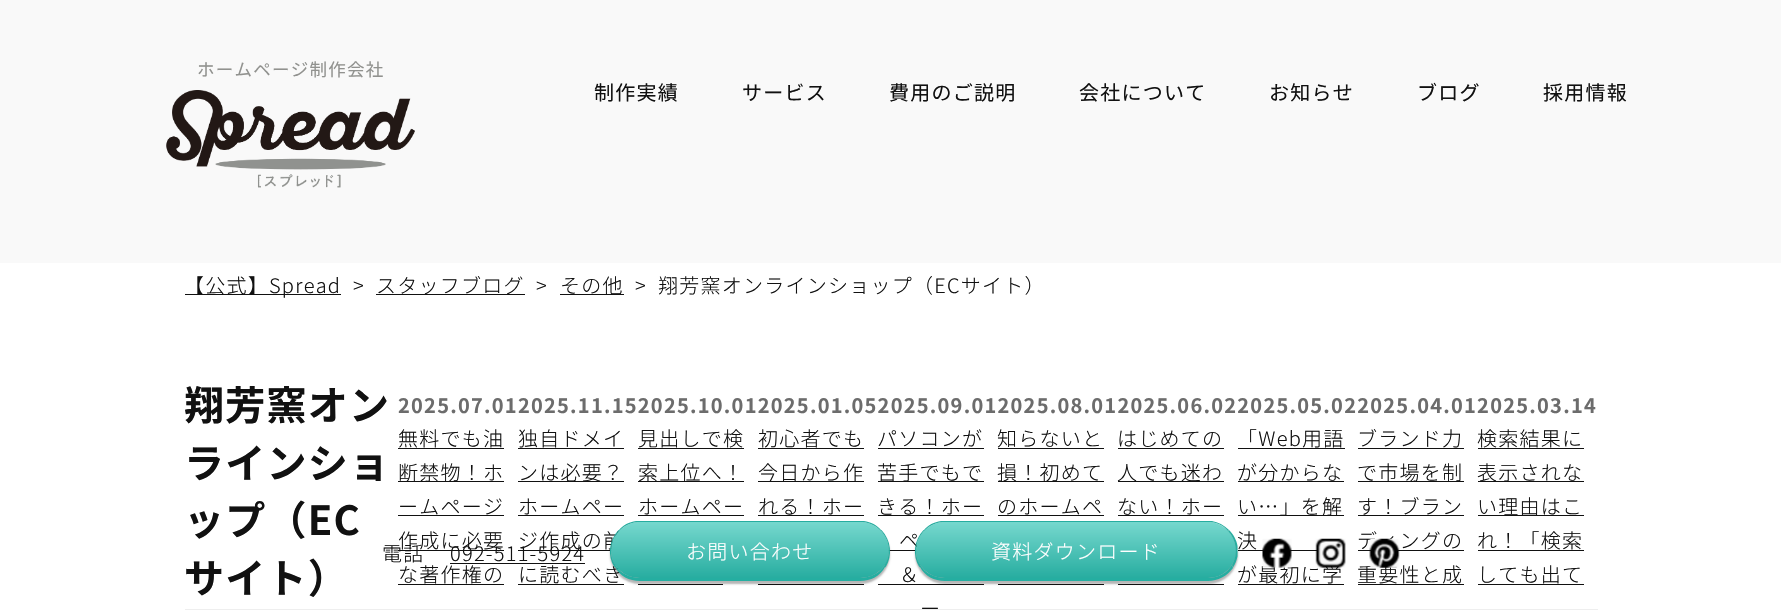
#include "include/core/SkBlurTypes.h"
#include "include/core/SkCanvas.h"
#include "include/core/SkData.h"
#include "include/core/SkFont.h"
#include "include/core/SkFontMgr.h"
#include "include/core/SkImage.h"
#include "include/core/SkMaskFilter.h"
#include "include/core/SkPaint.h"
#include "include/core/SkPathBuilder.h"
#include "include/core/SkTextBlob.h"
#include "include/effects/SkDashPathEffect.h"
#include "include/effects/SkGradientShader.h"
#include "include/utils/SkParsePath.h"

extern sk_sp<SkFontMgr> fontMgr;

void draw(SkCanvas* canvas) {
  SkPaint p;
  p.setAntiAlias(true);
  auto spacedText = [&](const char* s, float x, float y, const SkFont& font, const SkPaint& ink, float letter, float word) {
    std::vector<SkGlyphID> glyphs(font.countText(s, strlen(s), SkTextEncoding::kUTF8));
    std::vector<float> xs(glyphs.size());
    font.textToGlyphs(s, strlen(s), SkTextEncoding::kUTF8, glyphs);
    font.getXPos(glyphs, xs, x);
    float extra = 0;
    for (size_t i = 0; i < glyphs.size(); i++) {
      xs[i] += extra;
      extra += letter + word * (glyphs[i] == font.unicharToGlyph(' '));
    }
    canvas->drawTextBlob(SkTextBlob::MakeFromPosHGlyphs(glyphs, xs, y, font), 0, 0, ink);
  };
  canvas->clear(SK_ColorWHITE);
  p.setColor(SkColorSetRGB(249, 249, 249));
  canvas->drawRect(SkRect::MakeLTRB(0, 0, 1781, 263), p);
  canvas->drawImageRect(SkImages::DeferredFromEncodedData(SkData::MakeFromFileName("images/1.png")), SkRect::MakeLTRB(166, 90, 415, 188), SkSamplingOptions());
  p.setColor(SkColorSetRGB(238, 238, 238));
  canvas->drawRect(SkRect::MakeLTRB(185, 609, 1598, 610), p);
  p.setColor(SkColorSetRGB(17, 17, 17));
  canvas->drawRect(SkRect::MakeLTRB(450, 563, 585, 564), p);
  canvas->drawRect(SkRect::MakeLTRB(518, 550, 612, 551), p);
  canvas->drawRect(SkRect::MakeLTRB(518, 584, 624, 585), p);
  canvas->drawRect(SkRect::MakeLTRB(638, 584, 723, 585), p);
  canvas->drawRect(SkRect::MakeLTRB(758, 584, 864, 585), p);
  canvas->drawRect(SkRect::MakeLTRB(888, 550, 917, 551), p);
  canvas->drawRect(SkRect::MakeLTRB(878, 584, 984, 585), p);
  p.setColor(SkColorSetARGB(74, 0, 0, 0));
  p.setMaskFilter(SkMaskFilter::MakeBlur(kNormal_SkBlurStyle, 1));
  canvas->drawRoundRect(SkRect::MakeLTRB(610, 524, 890, 584), 30, 30, p);
  p.setMaskFilter(nullptr);
  p.setColor(SkColorSetRGB(17, 17, 17));
  canvas->drawRect(SkRect::MakeLTRB(998, 584, 1104, 585), p);
  canvas->drawRect(SkRect::MakeLTRB(1118, 584, 1224, 585), p);
  canvas->drawRect(SkRect::MakeLTRB(1238, 550, 1317, 551), p);
  canvas->drawRect(SkRect::MakeLTRB(1238, 584, 1344, 585), p);
  p.setColor(SkColorSetARGB(74, 0, 0, 0));
  p.setMaskFilter(SkMaskFilter::MakeBlur(kNormal_SkBlurStyle, 1));
  canvas->drawRoundRect(SkRect::MakeLTRB(915, 524, 1238, 584), 30, 30, p);
  p.setMaskFilter(nullptr);
  p.setColor(SkColorSetRGB(17, 17, 17));
  canvas->drawRect(SkRect::MakeLTRB(185, 294, 341, 295), p);
  canvas->drawRect(SkRect::MakeLTRB(376, 294, 525, 295), p);
  canvas->drawRect(SkRect::MakeLTRB(560, 294, 624, 295), p);
  canvas->drawRect(SkRect::MakeLTRB(398, 448, 504, 449), p);
  canvas->drawRect(SkRect::MakeLTRB(398, 481, 504, 482), p);
  canvas->drawRect(SkRect::MakeLTRB(398, 515, 504, 516), p);
  canvas->drawRect(SkRect::MakeLTRB(398, 550, 504, 551), p);
  canvas->drawRect(SkRect::MakeLTRB(398, 584, 504, 585), p);
  canvas->drawRect(SkRect::MakeLTRB(518, 448, 624, 449), p);
  canvas->drawRect(SkRect::MakeLTRB(518, 481, 624, 482), p);
  canvas->drawRect(SkRect::MakeLTRB(518, 515, 624, 516), p);
  canvas->drawRect(SkRect::MakeLTRB(638, 448, 744, 449), p);
  canvas->drawRect(SkRect::MakeLTRB(638, 481, 744, 482), p);
  canvas->drawRect(SkRect::MakeLTRB(638, 515, 744, 516), p);
  canvas->drawRect(SkRect::MakeLTRB(758, 448, 864, 449), p);
  canvas->drawRect(SkRect::MakeLTRB(758, 481, 864, 482), p);
  canvas->drawRect(SkRect::MakeLTRB(758, 515, 864, 516), p);
  canvas->drawRect(SkRect::MakeLTRB(878, 448, 984, 449), p);
  canvas->drawRect(SkRect::MakeLTRB(878, 481, 984, 482), p);
  canvas->drawRect(SkRect::MakeLTRB(878, 515, 984, 516), p);
  canvas->drawRect(SkRect::MakeLTRB(998, 448, 1104, 449), p);
  canvas->drawRect(SkRect::MakeLTRB(998, 481, 1104, 482), p);
  canvas->drawRect(SkRect::MakeLTRB(998, 515, 1104, 516), p);
  canvas->drawRect(SkRect::MakeLTRB(1118, 448, 1224, 449), p);
  canvas->drawRect(SkRect::MakeLTRB(1118, 481, 1224, 482), p);
  canvas->drawRect(SkRect::MakeLTRB(1118, 515, 1224, 516), p);
  canvas->drawRect(SkRect::MakeLTRB(1238, 448, 1345, 449), p);
  canvas->drawRect(SkRect::MakeLTRB(1238, 481, 1344, 482), p);
  canvas->drawRect(SkRect::MakeLTRB(1238, 515, 1344, 516), p);
  canvas->drawRect(SkRect::MakeLTRB(1358, 448, 1464, 449), p);
  canvas->drawRect(SkRect::MakeLTRB(1358, 481, 1464, 482), p);
  canvas->drawRect(SkRect::MakeLTRB(1358, 515, 1464, 516), p);
  canvas->drawRect(SkRect::MakeLTRB(1358, 550, 1464, 551), p);
  canvas->drawRect(SkRect::MakeLTRB(1358, 584, 1464, 585), p);
  canvas->drawRect(SkRect::MakeLTRB(1478, 448, 1584, 449), p);
  canvas->drawRect(SkRect::MakeLTRB(1478, 481, 1584, 482), p);
  canvas->drawRect(SkRect::MakeLTRB(1478, 515, 1584, 516), p);
  canvas->drawRect(SkRect::MakeLTRB(1478, 550, 1584, 551), p);
  canvas->drawRect(SkRect::MakeLTRB(1478, 584, 1584, 585), p);
  SkFont font1(fontMgr->matchFamilyStyle("Noto Sans JP", SkFontStyle::Normal()), 17.5f);
  font1.setSubpixel(true);
  p.setColor(SkColorSetRGB(145, 146, 143));
  spacedText("ホームページ制作会社", 197, 76, font1, p, 1.25f, 0);
  SkFont font2(fontMgr->matchFamilyStyle("Noto Sans JP", SkFontStyle::Normal()), 20);
  font2.setSubpixel(true);
  p.setColor(SkColorSetRGB(17, 17, 17));
  spacedText("制作実績", 594, 100, font2, p, 1.25f, 0);
  spacedText("サービス", 742, 100, font2, p, 1.25f, 0);
  spacedText("費用のご説明", 889, 100, font2, p, 1.25f, 0);
  spacedText("会社について", 1079, 100, font2, p, 1.25f, 0);
  spacedText("お知らせ", 1269, 100, font2, p, 1.25f, 0);
  spacedText("ブログ", 1417, 100, font2, p, 1.25f, 0);
  spacedText("採用情報", 1543, 100, font2, p, 1.25f, 0);
  SkFont font3(fontMgr->matchFamilyStyle("Noto Sans JP", SkFontStyle(300, SkFontStyle::kNormal_Width, SkFontStyle::kUpright_Slant)), 20);
  font3.setSubpixel(true);
  spacedText("電話", 382, 561, font3, p, 1.25f, 0);
  spacedText("092-511-5924", 450, 561, font3, p, 1.25f, 0);
  spacedText("【公式】Spread", 184, 293, font3, p, 1.25f, 0);
  spacedText(">", 353, 293, font3, p, 1.25f, 0);
  spacedText("スタッフブログ", 376, 293, font3, p, 1.25f, 0);
  spacedText(">", 536, 293, font3, p, 1.25f, 0);
  spacedText("その他", 560, 293, font3, p, 1.25f, 0);
  spacedText(">", 635, 293, font3, p, 1.25f, 0);
  spacedText("翔芳窯オンラインショップ（ECサイト）", 658, 293, font3, p, 1.25f, 0);
  SkFont font4(fontMgr->matchFamilyStyle("Noto Sans JP", SkFontStyle::Bold()), 40);
  font4.setSubpixel(true);
  spacedText("翔芳窯オン", 184, 420, font4, p, 1.25f, 0);
  spacedText("ラインショ", 184, 478, font4, p, 1.25f, 0);
  spacedText("ップ（EC", 184, 535, font4, p, 1.25f, 0);
  spacedText("サイト）", 184, 593, font4, p, 1.25f, 0);
  SkFont font5(fontMgr->matchFamilyStyle("Noto Sans JP", SkFontStyle::Bold()), 20);
  font5.setSubpixel(true);
  p.setColor(SkColorSetRGB(108, 108, 108));
  spacedText("2025.07.012025.11.152025.10.012025.01.052025.09.012025.08.012025.06.022025.05.022025.04.012025.03.14", 398, 413, font5, p, 1.25f, 0);
  p.setColor(SkColorSetRGB(17, 17, 17));
  spacedText("無料でも油", 398, 446, font3, p, 1.25f, 0);
  spacedText("断禁物！ホ", 398, 480, font3, p, 1.25f, 0);
  spacedText("ームページ", 398, 514, font3, p, 1.25f, 0);
  spacedText("作成に必要", 398, 548, font3, p, 1.25f, 0);
  spacedText("な著作権の", 398, 582, font3, p, 1.25f, 0);
  spacedText("独自ドメイ", 518, 446, font3, p, 1.25f, 0);
  spacedText("ンは必要？", 518, 480, font3, p, 1.25f, 0);
  spacedText("ホームペー", 518, 514, font3, p, 1.25f, 0);
  spacedText("ジ作成の前", 518, 548, font3, p, 1.25f, 0);
  spacedText("に読むべき", 518, 582, font3, p, 1.25f, 0);
  {
    const SkColor colors[] = {SkColorSetRGB(117, 215, 205), SkColorSetRGB(39, 173, 160)};
    const float stops[] = {0, 1};
    const SkPoint ends[] = {{750, 523}, {750, 578}};
    p.setShader(SkGradientShader::MakeLinear(ends, colors, stops, 2, SkTileMode::kClamp));
    p.setAlpha(255);
  }
  canvas->drawPath(SkPathBuilder().moveTo(640, 522).lineTo(860, 522).cubicTo(876, 522, 889, 535, 889, 551).cubicTo(889, 566, 876, 578, 860, 578).lineTo(640, 578).cubicTo(624, 578, 611, 566, 611, 551).cubicTo(611, 535, 624, 522, 640, 522).close().detach(), p);
  p.setShader(nullptr);
  p.setColor(SK_ColorWHITE);
  spacedText("お問い合わせ", 686, 559, font3, p, 1.25f, 0);
  p.setColor(SkColorSetRGB(39, 173, 160));
  canvas->drawPath(SkPathBuilder().moveTo(640, 522).cubicTo(632, 522, 625, 525, 619, 531).lineTo(619, 530).cubicTo(623, 525, 629, 522, 636, 521).lineTo(864, 521).cubicTo(871, 522, 877, 525, 881, 530).lineTo(881, 531).cubicTo(875, 525, 868, 522, 860, 522).close().detach(), p);
  canvas->drawPath(SkPathBuilder().moveTo(881.5f, 530).cubicTo(891, 540, 893, 555.5f, 885.5f, 567.5f).lineTo(884.5f, 565).cubicTo(892, 554.5f, 889.5f, 539.5f, 880.5f, 530.5f).close().detach(), p);
  p.setColor(SkColorSetRGB(37, 174, 161));
  canvas->drawPath(SkPathBuilder().moveTo(885, 567).cubicTo(880, 576, 871, 581, 860, 581).lineTo(640, 581).cubicTo(629, 581, 620, 576, 615, 567).lineTo(615, 565).cubicTo(620, 573, 630, 578, 640, 578).lineTo(860, 578).cubicTo(870, 578, 880, 573, 885, 565).close().detach(), p);
  p.setColor(SkColorSetRGB(39, 173, 160));
  canvas->drawPath(SkPathBuilder().moveTo(614.5f, 567.5f).cubicTo(607, 555.5f, 609, 540, 618.5f, 530).lineTo(619.5f, 530.5f).cubicTo(610.5f, 539.5f, 608, 554.5f, 615.5f, 565).close().detach(), p);
  p.setColor(SkColorSetRGB(17, 17, 17));
  spacedText("見出しで検", 638, 446, font3, p, 1.25f, 0);
  spacedText("索上位へ！", 638, 480, font3, p, 1.25f, 0);
  spacedText("ホームペー", 638, 514, font3, p, 1.25f, 0);
  spacedText("初心者でも", 758, 446, font3, p, 1.25f, 0);
  spacedText("今日から作", 758, 480, font3, p, 1.25f, 0);
  spacedText("れる！ホー", 758, 514, font3, p, 1.25f, 0);
  spacedText("パソコンが", 877, 446, font3, p, 1.25f, 0);
  spacedText("苦手でもで", 877, 480, font3, p, 1.25f, 0);
  spacedText("きる！ホー", 877, 514, font3, p, 1.25f, 0);
  spacedText("ペ", 899, 548, font3, p, 1.25f, 0);
  {
    const SkColor colors[] = {SkColorSetRGB(117, 215, 205), SkColorSetRGB(39, 173, 160)};
    const float stops[] = {0, 1};
    const SkPoint ends[] = {{1076, 523}, {1076, 578}};
    p.setShader(SkGradientShader::MakeLinear(ends, colors, stops, 2, SkTileMode::kClamp));
    p.setAlpha(255);
  }
  canvas->drawPath(SkPathBuilder().moveTo(945, 522).lineTo(1208, 522).cubicTo(1223, 522, 1236, 535, 1236, 551).cubicTo(1236, 566, 1223, 578, 1208, 578).lineTo(945, 578).cubicTo(929, 578, 916, 566, 916, 551).cubicTo(916, 535, 929, 522, 945, 522).close().detach(), p);
  p.setShader(nullptr);
  p.setColor(SK_ColorWHITE);
  spacedText("資料ダウンロード", 991, 559, font3, p, 1.25f, 0);
  p.setColor(SkColorSetRGB(39, 173, 160));
  canvas->drawPath(SkPathBuilder().moveTo(945, 522).cubicTo(937, 522, 930, 525, 924, 531).lineTo(924, 530).cubicTo(928, 525, 934, 522, 941, 521).lineTo(1212, 521).cubicTo(1218, 522, 1224, 525, 1229, 530).lineTo(1228, 531).cubicTo(1223, 525, 1216, 522, 1208, 522).close().detach(), p);
  canvas->drawPath(SkPathBuilder().moveTo(1237.5f, 556.5f).cubicTo(1236.5f, 560.5f, 1235, 564.5f, 1233, 567.5f).lineTo(1232, 565).cubicTo(1238.5f, 554, 1236.5f, 540, 1228, 531).lineTo(1229, 530).cubicTo(1233, 534, 1236.5f, 539.5f, 1237.5f, 546).close().detach(), p);
  p.setColor(SkColorSetRGB(37, 174, 161));
  canvas->drawPath(SkPathBuilder().moveTo(1233, 568).cubicTo(1227, 576, 1218, 581, 1208, 581).lineTo(945, 581).cubicTo(934, 581, 925, 576, 920, 567).lineTo(920, 565).cubicTo(925, 573, 935, 578, 945, 578).lineTo(1208, 578).cubicTo(1218, 578, 1227, 573, 1232, 565).close().detach(), p);
  p.setColor(SkColorSetRGB(17, 17, 17));
  spacedText("＆", 899, 582, font3, p, 1.25f, 0);
  p.setColor(SkColorSetRGB(39, 173, 160));
  canvas->drawPath(SkPathBuilder().moveTo(919.5f, 567.5f).cubicTo(912, 555.5f, 914, 540, 923.5f, 530).lineTo(924.5f, 530.5f).cubicTo(915.5f, 539.5f, 913, 554.5f, 920.5f, 565).close().detach(), p);
  p.setColor(SkColorSetRGB(17, 17, 17));
  spacedText("ー", 920, 616, font3, p, 1.25f, 0);
  spacedText("知らないと", 997, 446, font3, p, 1.25f, 0);
  spacedText("損！初めて", 997, 480, font3, p, 1.25f, 0);
  spacedText("のホームペ", 997, 514, font3, p, 1.25f, 0);
  spacedText("はじめての", 1117, 446, font3, p, 1.25f, 0);
  spacedText("人でも迷わ", 1117, 480, font3, p, 1.25f, 0);
  spacedText("ない！ホー", 1117, 514, font3, p, 1.25f, 0);
  spacedText("「Web用語", 1237, 446, font3, p, 1.25f, 0);
  spacedText("が分からな", 1237, 480, font3, p, 1.25f, 0);
  spacedText("い…」を解", 1237, 514, font3, p, 1.25f, 0);
  spacedText("決", 1237, 548, font3, p, 1.25f, 0);
  spacedText("が最初に学", 1237, 582, font3, p, 1.25f, 0);
  canvas->drawImageRect(SkImages::DeferredFromEncodedData(SkData::MakeFromFileName("images/3.png")), SkRect::MakeLTRB(1315, 538, 1346, 568), SkSamplingOptions());
  canvas->drawImageRect(SkImages::DeferredFromEncodedData(SkData::MakeFromFileName("images/2.png")), SkRect::MakeLTRB(1262, 538, 1292, 568), SkSamplingOptions());
  spacedText("ブランド力", 1357, 446, font3, p, 1.25f, 0);
  spacedText("で市場を制", 1357, 480, font3, p, 1.25f, 0);
  spacedText("す！ブラン", 1357, 514, font3, p, 1.25f, 0);
  spacedText("ディングの", 1357, 548, font3, p, 1.25f, 0);
  spacedText("重要性と成", 1357, 582, font3, p, 1.25f, 0);
  canvas->drawImageRect(SkImages::DeferredFromEncodedData(SkData::MakeFromFileName("images/4.png")), SkRect::MakeLTRB(1369, 538, 1400, 568), SkSamplingOptions());
  spacedText("検索結果に", 1477, 446, font3, p, 1.25f, 0);
  spacedText("表示されな", 1477, 480, font3, p, 1.25f, 0);
  spacedText("い理由はこ", 1477, 514, font3, p, 1.25f, 0);
  spacedText("れ！「検索", 1477, 548, font3, p, 1.25f, 0);
  spacedText("しても出て", 1477, 582, font3, p, 1.25f, 0);
}
